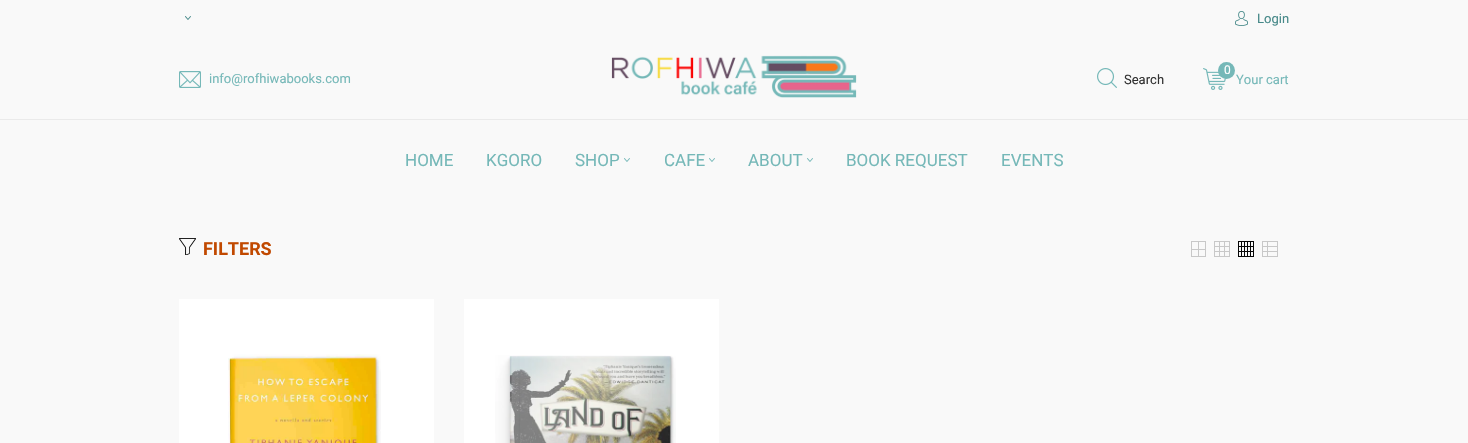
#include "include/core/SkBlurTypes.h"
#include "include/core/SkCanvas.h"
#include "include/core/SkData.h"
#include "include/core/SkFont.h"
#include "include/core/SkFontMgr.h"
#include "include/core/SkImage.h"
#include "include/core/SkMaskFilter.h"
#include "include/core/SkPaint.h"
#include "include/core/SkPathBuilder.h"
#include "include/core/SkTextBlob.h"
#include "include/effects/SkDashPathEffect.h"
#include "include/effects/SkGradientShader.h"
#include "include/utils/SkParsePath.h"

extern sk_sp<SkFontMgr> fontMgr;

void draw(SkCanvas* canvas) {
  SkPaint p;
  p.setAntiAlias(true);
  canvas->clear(SkColorSetRGB(249, 249, 249));
  canvas->drawImageRect(SkImages::DeferredFromEncodedData(SkData::MakeFromFileName("images/1.png")), SkRect::MakeLTRB(185, 16, 191, 20), SkSamplingOptions());
  canvas->drawImageRect(SkImages::DeferredFromEncodedData(SkData::MakeFromFileName("images/2.png")), SkRect::MakeLTRB(1235, 11, 1248, 26), SkSamplingOptions());
  p.setColor(SkColorSetRGB(234, 234, 234));
  canvas->drawRect(SkRect::MakeLTRB(0, 119, 1468, 120), p);
  canvas->drawImageRect(SkImages::DeferredFromEncodedData(SkData::MakeFromFileName("images/3.png")), SkRect::MakeLTRB(179, 71, 201, 88), SkSamplingOptions());
  canvas->drawImageRect(SkImages::DeferredFromEncodedData(SkData::MakeFromFileName("images/4.png")), SkRect::MakeLTRB(611, 55, 857, 98), SkSamplingOptions());
  canvas->drawImageRect(SkImages::DeferredFromEncodedData(SkData::MakeFromFileName("images/5.png")), SkRect::MakeLTRB(1097, 68, 1117, 88), SkSamplingOptions());
  canvas->drawImageRect(SkImages::DeferredFromEncodedData(SkData::MakeFromFileName("images/6.png")), SkRect::MakeLTRB(1203, 68, 1226, 90), SkSamplingOptions());
  p.setColor(SkColorSetRGB(117, 184, 184));
  canvas->drawCircle(1226.5f, 70.5f, 8.5f, p);
  canvas->drawImageRect(SkImages::DeferredFromEncodedData(SkData::MakeFromFileName("images/7.png")), SkRect::MakeLTRB(624, 158, 630, 162), SkSamplingOptions());
  canvas->drawImageRect(SkImages::DeferredFromEncodedData(SkData::MakeFromFileName("images/7.png")), SkRect::MakeLTRB(709, 158, 715, 162), SkSamplingOptions());
  canvas->drawImageRect(SkImages::DeferredFromEncodedData(SkData::MakeFromFileName("images/7.png")), SkRect::MakeLTRB(807, 158, 813, 162), SkSamplingOptions());
  canvas->drawImageRect(SkImages::DeferredFromEncodedData(SkData::MakeFromFileName("images/8.png")), SkRect::MakeLTRB(179, 238, 196, 255), SkSamplingOptions());
  canvas->drawImageRect(SkImages::DeferredFromEncodedData(SkData::MakeFromFileName("images/9.png")), SkRect::MakeLTRB(1191, 241, 1206, 257), SkSamplingOptions());
  canvas->drawImageRect(SkImages::DeferredFromEncodedData(SkData::MakeFromFileName("images/10.png")), SkRect::MakeLTRB(1214, 241, 1230, 257), SkSamplingOptions());
  canvas->drawImageRect(SkImages::DeferredFromEncodedData(SkData::MakeFromFileName("images/11.png")), SkRect::MakeLTRB(1238, 241, 1254, 257), SkSamplingOptions());
  canvas->drawImageRect(SkImages::DeferredFromEncodedData(SkData::MakeFromFileName("images/12.png")), SkRect::MakeLTRB(1262, 241, 1278, 257), SkSamplingOptions());
  p.setColor(SK_ColorWHITE);
  canvas->drawRect(SkRect::MakeLTRB(179, 299, 434, 443), p);
  canvas->drawImageRect(SkImages::DeferredFromEncodedData(SkData::MakeFromFileName("images/13.png")), SkRect::MakeLTRB(228, 354, 381, 443), SkSamplingOptions());
  canvas->drawRect(SkRect::MakeLTRB(464, 299, 719, 443), p);
  canvas->drawImageRect(SkImages::DeferredFromEncodedData(SkData::MakeFromFileName("images/14.png")), SkRect::MakeLTRB(495, 355, 676, 443), SkSamplingOptions());
  SkFont font1(fontMgr->matchFamilyStyle("Roboto", SkFontStyle::Normal()), 13);
  font1.setSubpixel(true);
  p.setColor(SkColorSetRGB(69, 136, 136));
  canvas->drawString("Login", 1257, 23, font1, p);
  p.setColor(SkColorSetRGB(117, 184, 184));
  canvas->drawString("info@rofhiwabooks.com", 209, 83, font1, p);
  p.setColor(SkColorSetRGB(49, 49, 49));
  canvas->drawString("Search", 1124, 84, font1, p);
  SkFont font2(fontMgr->matchFamilyStyle("Roboto", SkFontStyle::Normal()), 12);
  font2.setSubpixel(true);
  p.setColor(SK_ColorWHITE);
  canvas->drawString("0", 1224, 74, font2, p);
  p.setColor(SkColorSetRGB(117, 184, 184));
  canvas->drawString("Your cart", 1236, 84, font1, p);
  SkFont font3(fontMgr->matchFamilyStyle("Roboto", SkFontStyle::Normal()), 17);
  font3.setSubpixel(true);
  canvas->drawString("HOME", 405, 166, font3, p);
  canvas->drawString("KGORO", 486, 166, font3, p);
  canvas->drawString("SHOP", 575, 166, font3, p);
  canvas->drawString("CAFE", 664, 166, font3, p);
  canvas->drawString("ABOUT", 748, 166, font3, p);
  canvas->drawString("BOOK REQUEST", 846, 166, font3, p);
  canvas->drawString("EVENTS", 1001, 166, font3, p);
  SkFont font4(fontMgr->matchFamilyStyle("Roboto", SkFontStyle::Bold()), 18);
  font4.setSubpixel(true);
  p.setColor(SkColorSetRGB(193, 73, 0));
  canvas->drawString("FILTERS", 203, 255, font4, p);
}
